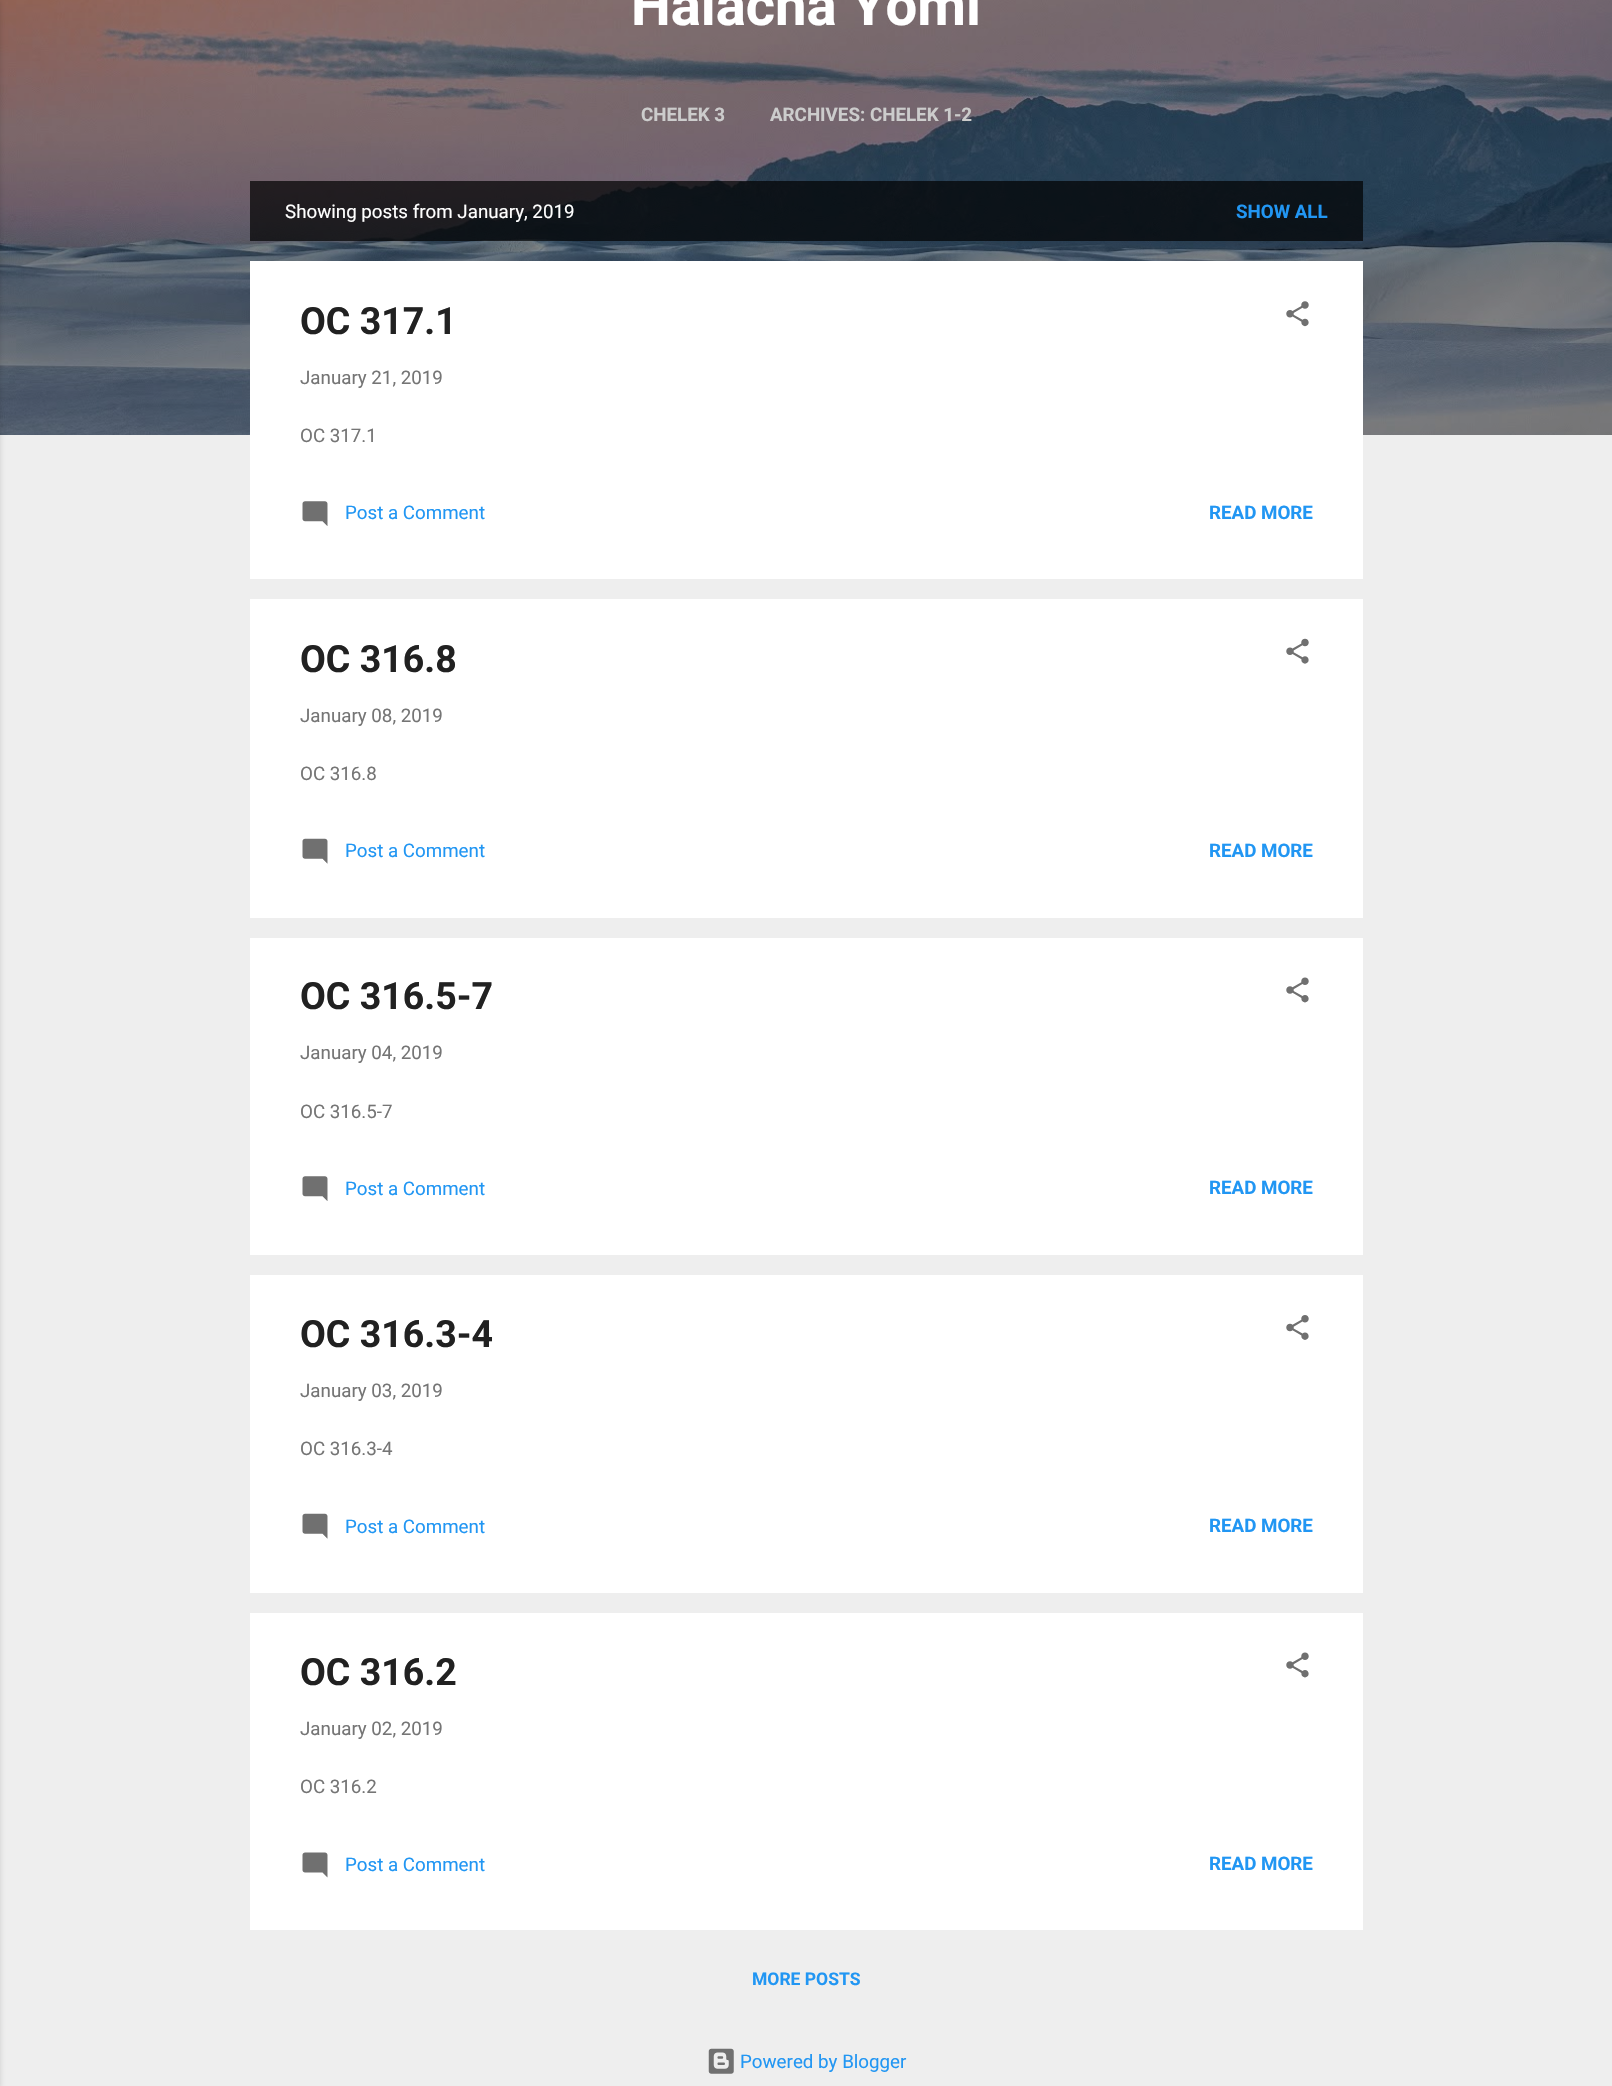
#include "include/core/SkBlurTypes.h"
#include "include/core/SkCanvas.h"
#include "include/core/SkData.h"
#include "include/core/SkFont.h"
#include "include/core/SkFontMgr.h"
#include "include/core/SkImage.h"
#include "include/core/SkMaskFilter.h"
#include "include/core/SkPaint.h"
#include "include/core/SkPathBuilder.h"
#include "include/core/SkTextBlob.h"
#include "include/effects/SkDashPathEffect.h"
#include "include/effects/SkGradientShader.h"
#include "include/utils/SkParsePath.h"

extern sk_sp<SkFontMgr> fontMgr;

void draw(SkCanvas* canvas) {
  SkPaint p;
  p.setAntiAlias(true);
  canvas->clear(SkColorSetRGB(238, 238, 238));
  canvas->drawImageRect(SkImages::DeferredFromEncodedData(SkData::MakeFromFileName("images/1.png")), SkRect::MakeLTRB(0, 0, 1612, 435), SkSamplingOptions());
  p.setColor(SkColorSetARGB(26, 0, 0, 0));
  p.setMaskFilter(SkMaskFilter::MakeBlur(kNormal_SkBlurStyle, 2));
  canvas->drawRect(SkRect::MakeLTRB(-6, 1, 1, 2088), p);
  p.setMaskFilter(nullptr);
  p.setColor(SkColorSetARGB(179, 0, 0, 0));
  canvas->drawRect(SkRect::MakeLTRB(250, 181, 1363, 241), p);
  p.setColor(SK_ColorWHITE);
  canvas->drawRect(SkRect::MakeLTRB(250, 261, 1363, 579), p);
  canvas->drawImageRect(SkImages::DeferredFromEncodedData(SkData::MakeFromFileName("images/2.png")), SkRect::MakeLTRB(1286, 301, 1309, 327), SkSamplingOptions());
  canvas->drawImageRect(SkImages::DeferredFromEncodedData(SkData::MakeFromFileName("images/3.png")), SkRect::MakeLTRB(302, 501, 328, 526), SkSamplingOptions());
  canvas->drawRect(SkRect::MakeLTRB(250, 599, 1363, 918), p);
  canvas->drawImageRect(SkImages::DeferredFromEncodedData(SkData::MakeFromFileName("images/4.png")), SkRect::MakeLTRB(1286, 638, 1309, 664), SkSamplingOptions());
  canvas->drawImageRect(SkImages::DeferredFromEncodedData(SkData::MakeFromFileName("images/5.png")), SkRect::MakeLTRB(302, 838, 328, 864), SkSamplingOptions());
  canvas->drawRect(SkRect::MakeLTRB(250, 938, 1363, 1255), p);
  canvas->drawImageRect(SkImages::DeferredFromEncodedData(SkData::MakeFromFileName("images/6.png")), SkRect::MakeLTRB(1286, 977, 1309, 1003), SkSamplingOptions());
  canvas->drawImageRect(SkImages::DeferredFromEncodedData(SkData::MakeFromFileName("images/3.png")), SkRect::MakeLTRB(302, 1176, 328, 1201), SkSamplingOptions());
  canvas->drawRect(SkRect::MakeLTRB(250, 1275, 1363, 1593), p);
  canvas->drawImageRect(SkImages::DeferredFromEncodedData(SkData::MakeFromFileName("images/7.png")), SkRect::MakeLTRB(1286, 1315, 1309, 1340), SkSamplingOptions());
  canvas->drawImageRect(SkImages::DeferredFromEncodedData(SkData::MakeFromFileName("images/8.png")), SkRect::MakeLTRB(302, 1513, 328, 1539), SkSamplingOptions());
  canvas->drawRect(SkRect::MakeLTRB(250, 1613, 1363, 1930), p);
  canvas->drawImageRect(SkImages::DeferredFromEncodedData(SkData::MakeFromFileName("images/6.png")), SkRect::MakeLTRB(1286, 1652, 1309, 1678), SkSamplingOptions());
  canvas->drawImageRect(SkImages::DeferredFromEncodedData(SkData::MakeFromFileName("images/9.png")), SkRect::MakeLTRB(302, 1852, 328, 1878), SkSamplingOptions());
  canvas->drawImageRect(SkImages::DeferredFromEncodedData(SkData::MakeFromFileName("images/10.png")), SkRect::MakeLTRB(708, 2048, 734, 2074), SkSamplingOptions());
  SkFont font1(fontMgr->matchFamilyStyle("Roboto", SkFontStyle::Bold()), 56.25f);
  font1.setSubpixel(true);
  canvas->drawString("Halacha Yomi", 631, 25, font1, p);
  SkFont font2(fontMgr->matchFamilyStyle("Roboto", SkFontStyle::Bold()), 18.75f);
  font2.setSubpixel(true);
  p.setColor(SkColorSetRGB(204, 204, 204));
  canvas->drawString("CHELEK 3", 641, 121, font2, p);
  canvas->drawString("ARCHIVES: CHELEK 1-2", 770, 121, font2, p);
  SkFont font3(fontMgr->matchFamilyStyle("Roboto", SkFontStyle::Normal()), 18.75f);
  font3.setSubpixel(true);
  p.setColor(SK_ColorWHITE);
  canvas->drawString("Showing posts from January, 2019", 285, 218, font3, p);
  p.setColor(SkColorSetRGB(33, 150, 243));
  canvas->drawString("SHOW ALL", 1236, 218, font2, p);
  SkFont font4(fontMgr->matchFamilyStyle("Roboto", SkFontStyle::Bold()), 37.5f);
  font4.setSubpixel(true);
  p.setColor(SkColorSetRGB(33, 33, 33));
  canvas->drawString("OC 317.1", 300, 334, font4, p);
  p.setColor(SkColorSetRGB(117, 117, 117));
  canvas->drawString("January 21, 2019", 300, 384, font3, p);
  canvas->drawString("OC 317.1", 300, 442, font3, p);
  p.setColor(SkColorSetRGB(33, 150, 243));
  canvas->drawString("Post a Comment", 345, 519, font3, p);
  canvas->drawString("READ MORE", 1209, 519, font2, p);
  p.setColor(SkColorSetRGB(33, 33, 33));
  canvas->drawString("OC 316.8", 300, 672, font4, p);
  p.setColor(SkColorSetRGB(117, 117, 117));
  canvas->drawString("January 08, 2019", 300, 722, font3, p);
  canvas->drawString("OC 316.8", 300, 780, font3, p);
  p.setColor(SkColorSetRGB(33, 150, 243));
  canvas->drawString("Post a Comment", 345, 857, font3, p);
  canvas->drawString("READ MORE", 1209, 857, font2, p);
  p.setColor(SkColorSetRGB(33, 33, 33));
  canvas->drawString("OC 316.5-7", 300, 1009, font4, p);
  p.setColor(SkColorSetRGB(117, 117, 117));
  canvas->drawString("January 04, 2019", 300, 1059, font3, p);
  canvas->drawString("OC 316.5-7", 300, 1118, font3, p);
  p.setColor(SkColorSetRGB(33, 150, 243));
  canvas->drawString("Post a Comment", 345, 1195, font3, p);
  canvas->drawString("READ MORE", 1209, 1194, font2, p);
  p.setColor(SkColorSetRGB(33, 33, 33));
  canvas->drawString("OC 316.3-4", 300, 1347, font4, p);
  p.setColor(SkColorSetRGB(117, 117, 117));
  canvas->drawString("January 03, 2019", 300, 1397, font3, p);
  canvas->drawString("OC 316.3-4", 300, 1455, font3, p);
  p.setColor(SkColorSetRGB(33, 150, 243));
  canvas->drawString("Post a Comment", 345, 1533, font3, p);
  canvas->drawString("READ MORE", 1209, 1532, font2, p);
  p.setColor(SkColorSetRGB(33, 33, 33));
  canvas->drawString("OC 316.2", 300, 1685, font4, p);
  p.setColor(SkColorSetRGB(117, 117, 117));
  canvas->drawString("January 02, 2019", 300, 1735, font3, p);
  canvas->drawString("OC 316.2", 300, 1793, font3, p);
  p.setColor(SkColorSetRGB(33, 150, 243));
  canvas->drawString("Post a Comment", 345, 1871, font3, p);
  canvas->drawString("READ MORE", 1209, 1870, font2, p);
  SkFont font5(fontMgr->matchFamilyStyle("Roboto", SkFontStyle::Bold()), 17.5f);
  font5.setSubpixel(true);
  canvas->drawString("MORE POSTS", 752, 1985, font5, p);
  canvas->drawString("Powered by Blogger", 740, 2068, font3, p);
}
